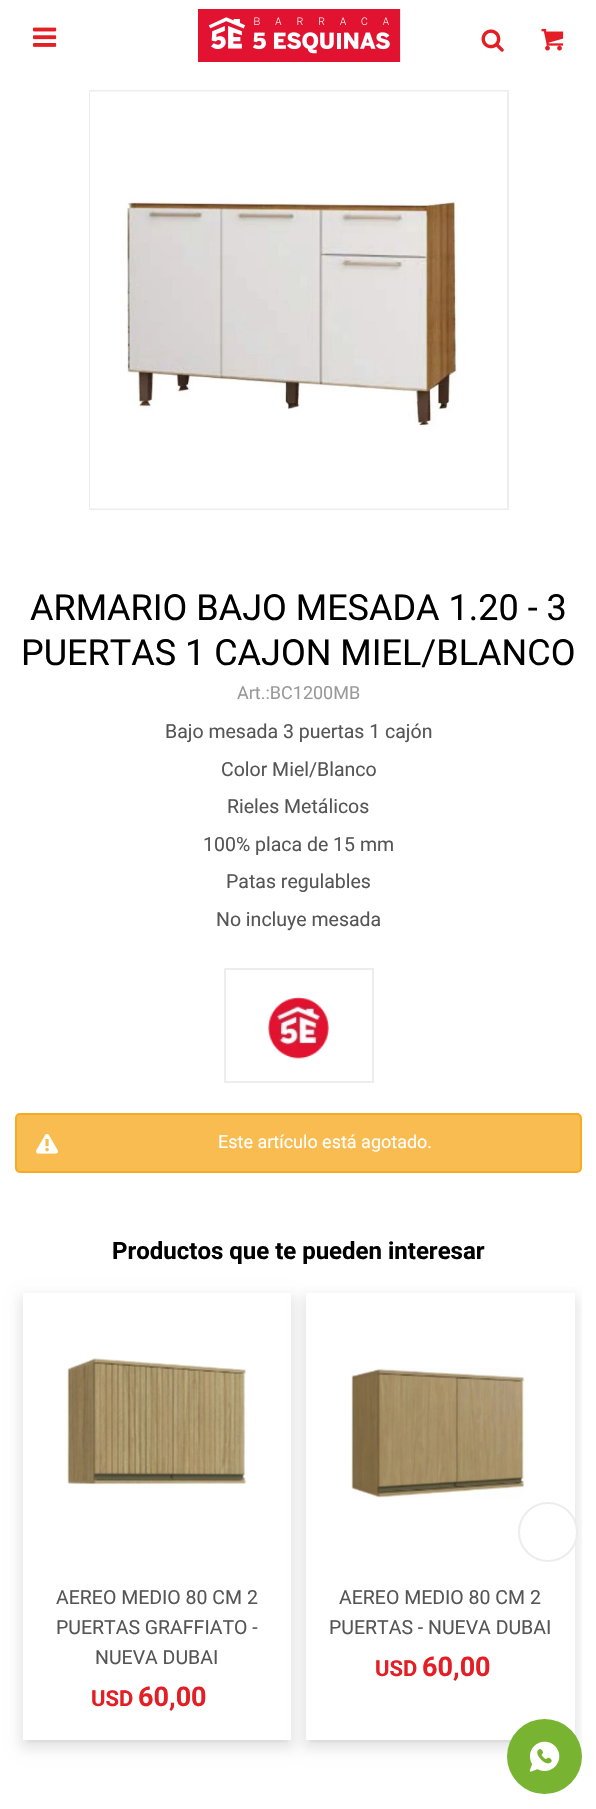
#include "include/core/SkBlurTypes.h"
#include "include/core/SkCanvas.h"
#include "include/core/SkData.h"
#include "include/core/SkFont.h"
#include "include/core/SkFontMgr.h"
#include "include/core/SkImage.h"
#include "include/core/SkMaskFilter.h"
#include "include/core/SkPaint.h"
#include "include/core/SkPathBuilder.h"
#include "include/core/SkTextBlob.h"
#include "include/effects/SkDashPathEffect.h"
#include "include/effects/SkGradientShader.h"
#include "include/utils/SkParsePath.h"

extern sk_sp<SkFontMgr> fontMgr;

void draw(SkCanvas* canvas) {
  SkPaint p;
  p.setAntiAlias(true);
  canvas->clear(SK_ColorWHITE);
  canvas->drawImageRect(SkImages::DeferredFromEncodedData(SkData::MakeFromFileName("images/1.png")), SkRect::MakeLTRB(33, 27, 57, 47), SkSamplingOptions());
  canvas->drawImageRect(SkImages::DeferredFromEncodedData(SkData::MakeFromFileName("images/2.png")), SkRect::MakeLTRB(198, 9, 401, 62), SkSamplingOptions());
  canvas->drawImageRect(SkImages::DeferredFromEncodedData(SkData::MakeFromFileName("images/3.png")), SkRect::MakeLTRB(481, 29, 504, 52), SkSamplingOptions());
  canvas->drawImageRect(SkImages::DeferredFromEncodedData(SkData::MakeFromFileName("images/4.png")), SkRect::MakeLTRB(541, 28, 564, 51), SkSamplingOptions());
  p.setStyle(SkPaint::kStroke_Style);
  p.setStrokeWidth(2);
  p.setColor(SkColorSetRGB(237, 237, 237));
  canvas->drawRect(SkRect::MakeLTRB(90, 91, 508, 509), p);
  canvas->drawImageRect(SkImages::DeferredFromEncodedData(SkData::MakeFromFileName("images/5.png")), SkRect::MakeLTRB(90, 91, 507, 509), SkSamplingOptions());
  canvas->drawRect(SkRect::MakeLTRB(225, 969, 373, 1082), p);
  canvas->drawImageRect(SkImages::DeferredFromEncodedData(SkData::MakeFromFileName("images/6.png")), SkRect::MakeLTRB(268, 996, 330, 1059), SkSamplingOptions());
  p.setStyle(SkPaint::kFill_Style);
  p.setColor(SkColorSetRGB(248, 188, 80));
  canvas->drawRoundRect(SkRect::MakeLTRB(16, 1114, 581, 1172), 4, 4, p);
  p.setStyle(SkPaint::kStroke_Style);
  p.setColor(SkColorSetRGB(246, 171, 36));
  canvas->drawRoundRect(SkRect::MakeLTRB(16, 1114, 581, 1172), 4, 4, p);
  canvas->drawImageRect(SkImages::DeferredFromEncodedData(SkData::MakeFromFileName("images/7.png")), SkRect::MakeLTRB(36, 1134, 58, 1154), SkSamplingOptions());
  canvas->drawImageRect(SkImages::DeferredFromEncodedData(SkData::MakeFromFileName("images/9.png")), SkRect::MakeLTRB(351, 1368, 525, 1498), SkSamplingOptions());
  canvas->save();
  canvas->clipRect(SkRect::MakeLTRB(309, 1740, 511, 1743));
  p.setStyle(SkPaint::kFill_Style);
  p.setColor(SkColorSetARGB(26, 0, 0, 0));
  p.setMaskFilter(SkMaskFilter::MakeBlur(kNormal_SkBlurStyle, 3));
  canvas->drawRect(SkRect::MakeLTRB(309, 1299, 572, 1740), p);
  p.setMaskFilter(nullptr);
  canvas->restore();
  canvas->save();
  canvas->clipRect(SkRect::MakeLTRB(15, 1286, 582, 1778));
  canvas->clipPath(SkPathBuilder(SkPathFillType::kEvenOdd).moveTo(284, 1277).lineTo(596, 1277).lineTo(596, 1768).lineTo(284, 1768).close().moveTo(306, 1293).lineTo(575, 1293).lineTo(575, 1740).lineTo(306, 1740).close().detach(), true);
  p.setMaskFilter(SkMaskFilter::MakeBlur(kNormal_SkBlurStyle, 6));
  canvas->drawRect(SkRect::MakeLTRB(303, 1296, 578, 1749), p);
  p.setMaskFilter(nullptr);
  canvas->restore();
  p.setColor(SK_ColorWHITE);
  canvas->drawCircle(548, 1532, 29, p);
  p.setStyle(SkPaint::kStroke_Style);
  p.setColor(SkColorSetRGB(237, 237, 237));
  canvas->drawCircle(548, 1532, 29, p);
  canvas->drawImageRect(SkImages::DeferredFromEncodedData(SkData::MakeFromFileName("images/8.png")), SkRect::MakeLTRB(67, 1358, 247, 1486), SkSamplingOptions());
  canvas->save();
  canvas->clipRect(SkRect::MakeLTRB(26, 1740, 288, 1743));
  p.setStyle(SkPaint::kFill_Style);
  p.setColor(SkColorSetARGB(26, 0, 0, 0));
  p.setMaskFilter(SkMaskFilter::MakeBlur(kNormal_SkBlurStyle, 3));
  canvas->drawRect(SkRect::MakeLTRB(26, 1299, 288, 1740), p);
  p.setMaskFilter(nullptr);
  canvas->restore();
  canvas->save();
  canvas->clipPath(SkPathBuilder(SkPathFillType::kEvenOdd).moveTo(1, 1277).lineTo(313, 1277).lineTo(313, 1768).lineTo(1, 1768).close().moveTo(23, 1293).lineTo(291, 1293).lineTo(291, 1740).lineTo(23, 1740).close().detach(), true);
  p.setMaskFilter(SkMaskFilter::MakeBlur(kNormal_SkBlurStyle, 6));
  canvas->drawRect(SkRect::MakeLTRB(20, 1296, 294, 1749), p);
  p.setMaskFilter(nullptr);
  canvas->restore();
  p.setColor(SkColorSetRGB(120, 180, 50));
  canvas->drawCircle(544.5f, 1756.5f, 37.5f, p);
  canvas->drawImageRect(SkImages::DeferredFromEncodedData(SkData::MakeFromFileName("images/10.png")), SkRect::MakeLTRB(529, 1741, 560, 1772), SkSamplingOptions());
  SkFont font1(fontMgr->matchFamilyStyle("Roboto", SkFontStyle::Normal()), 36);
  font1.setSubpixel(true);
  p.setColor(SK_ColorBLACK);
  canvas->drawString("ARMARIO BAJO MESADA 1.20 - 3", 30, 620, font1, p);
  canvas->drawString("PUERTAS 1 CAJON MIEL/BLANCO", 21, 665, font1, p);
  SkFont font2(fontMgr->matchFamilyStyle("Roboto", SkFontStyle::Normal()), 18);
  font2.setSubpixel(true);
  p.setColor(SkColorSetRGB(153, 153, 153));
  canvas->drawString("Art.:BC1200MB", 237, 699, font2, p);
  SkFont font3(fontMgr->matchFamilyStyle("Roboto", SkFontStyle::Normal()), 19.5f);
  font3.setSubpixel(true);
  p.setColor(SkColorSetRGB(85, 85, 85));
  canvas->drawString("Bajo mesada 3 puertas 1 cajón", 165, 738, font3, p);
  canvas->drawString("Color Miel/Blanco", 221, 776, font3, p);
  canvas->drawString("Rieles Metálicos", 227, 813, font3, p);
  canvas->drawString("100% placa de 15 mm", 203, 851, font3, p);
  canvas->drawString("Patas regulables", 226, 888, font3, p);
  canvas->drawString("No incluye mesada", 216, 926, font3, p);
  p.setColor(SK_ColorWHITE);
  canvas->drawString("Este artículo está agotado.", 218, 1148, font2, p);
  SkFont font4(fontMgr->matchFamilyStyle("Roboto", SkFontStyle::Bold()), 24);
  font4.setSubpixel(true);
  p.setColor(SK_ColorBLACK);
  canvas->drawString("Productos que te pueden interesar", 112, 1259, font4, p);
  p.setColor(SkColorSetRGB(85, 85, 85));
  canvas->drawString("AEREO MEDIO 80 CM 2", 56, 1604, font3, p);
  canvas->drawString("PUERTAS GRAFFIATO -", 56, 1634, font3, p);
  canvas->drawString("NUEVA DUBAI", 95, 1664, font3, p);
  SkFont font5(fontMgr->matchFamilyStyle("Roboto", SkFontStyle::Bold()), 22);
  font5.setSubpixel(true);
  p.setColor(SkColorSetRGB(227, 30, 36));
  canvas->drawString("USD", 91, 1706, font5, p);
  SkFont font6(fontMgr->matchFamilyStyle("Roboto", SkFontStyle::Bold()), 27);
  font6.setSubpixel(true);
  canvas->drawString("60,00", 138, 1706, font6, p);
  p.setColor(SkColorSetRGB(85, 85, 85));
  canvas->drawString("AEREO MEDIO 80 CM 2", 339, 1604, font3, p);
  canvas->drawString("PUERTAS - NUEVA DUBAI", 329, 1634, font3, p);
  p.setColor(SkColorSetRGB(227, 30, 36));
  canvas->drawString("USD", 375, 1676, font5, p);
  canvas->drawString("60,00", 422, 1676, font6, p);
}
